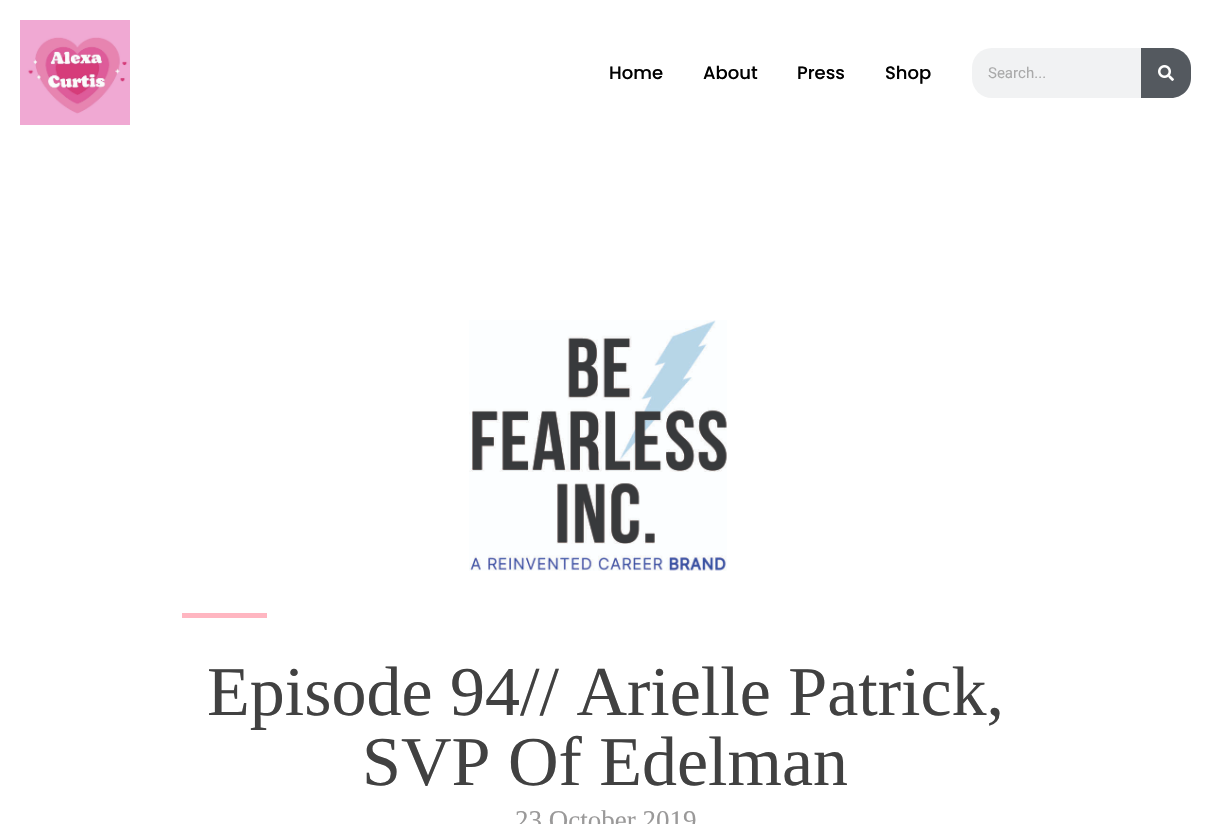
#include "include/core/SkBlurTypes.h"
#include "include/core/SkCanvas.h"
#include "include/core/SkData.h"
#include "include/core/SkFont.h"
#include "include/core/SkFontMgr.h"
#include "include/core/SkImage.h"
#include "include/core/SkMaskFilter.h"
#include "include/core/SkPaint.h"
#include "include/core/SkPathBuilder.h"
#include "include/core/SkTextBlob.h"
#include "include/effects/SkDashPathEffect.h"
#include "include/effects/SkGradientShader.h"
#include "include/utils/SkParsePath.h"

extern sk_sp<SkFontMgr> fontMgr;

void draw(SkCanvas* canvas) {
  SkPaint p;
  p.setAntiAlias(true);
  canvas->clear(SK_ColorWHITE);
  canvas->drawImageRect(SkImages::DeferredFromEncodedData(SkData::MakeFromFileName("images/1.png")), SkRect::MakeLTRB(20, 20, 130, 125), SkSamplingOptions());
  p.setColor(SkColorSetRGB(241, 242, 243));
  canvas->drawRoundRect(SkRect::MakeLTRB(972, 48, 1191, 98), 20, 20, p);
  p.setColor(SkColorSetRGB(84, 89, 95));
  canvas->drawPath(SkPathBuilder().moveTo(1141, 48).lineTo(1171, 48).cubicTo(1182, 48, 1191, 57, 1191, 68).lineTo(1191, 78).cubicTo(1191, 89, 1182, 98, 1171, 98).lineTo(1141, 98).close().detach(), p);
  canvas->drawImageRect(SkImages::DeferredFromEncodedData(SkData::MakeFromFileName("images/2.png")), SkRect::MakeLTRB(1158, 65, 1174, 81), SkSamplingOptions());
  canvas->drawImageRect(SkImages::DeferredFromEncodedData(SkData::MakeFromFileName("images/3.png")), SkRect::MakeLTRB(469, 320, 727, 571), SkSamplingOptions());
  p.setColor(SkColorSetRGB(255, 182, 193));
  canvas->drawRect(SkRect::MakeLTRB(182, 613, 267, 618), p);
  SkFont font1(fontMgr->matchFamilyStyle("Poppins", SkFontStyle(500, SkFontStyle::kNormal_Width, SkFontStyle::kUpright_Slant)), 18);
  font1.setSubpixel(true);
  p.setColor(SK_ColorBLACK);
  canvas->drawString("Home", 609, 79, font1, p);
  canvas->drawString("About", 703, 79, font1, p);
  canvas->drawString("Press", 797, 79, font1, p);
  canvas->drawString("Shop", 885, 79, font1, p);
  SkFont font2(fontMgr->matchFamilyStyle("Roboto", SkFontStyle::Normal()), 15);
  font2.setSubpixel(true);
  p.setColor(SkColorSetRGB(170, 170, 170));
  canvas->drawString("Search...", 988, 78, font2, p);
  SkFont font3(fontMgr->matchFamilyStyle("Liberation Serif", SkFontStyle::Normal()), 70);
  font3.setSubpixel(true);
  p.setColor(SkColorSetRGB(65, 65, 65));
  canvas->drawString("Episode 94// Arielle Patrick,", 207, 715, font3, p);
  canvas->drawString("SVP Of Edelman", 362, 785, font3, p);
  SkFont font4(fontMgr->matchFamilyStyle("Liberation Serif", SkFontStyle::Normal()), 27);
  font4.setSubpixel(true);
  p.setColor(SkColorSetRGB(154, 153, 153));
  canvas->drawString("23 October 2019", 515, 829, font4, p);
}
